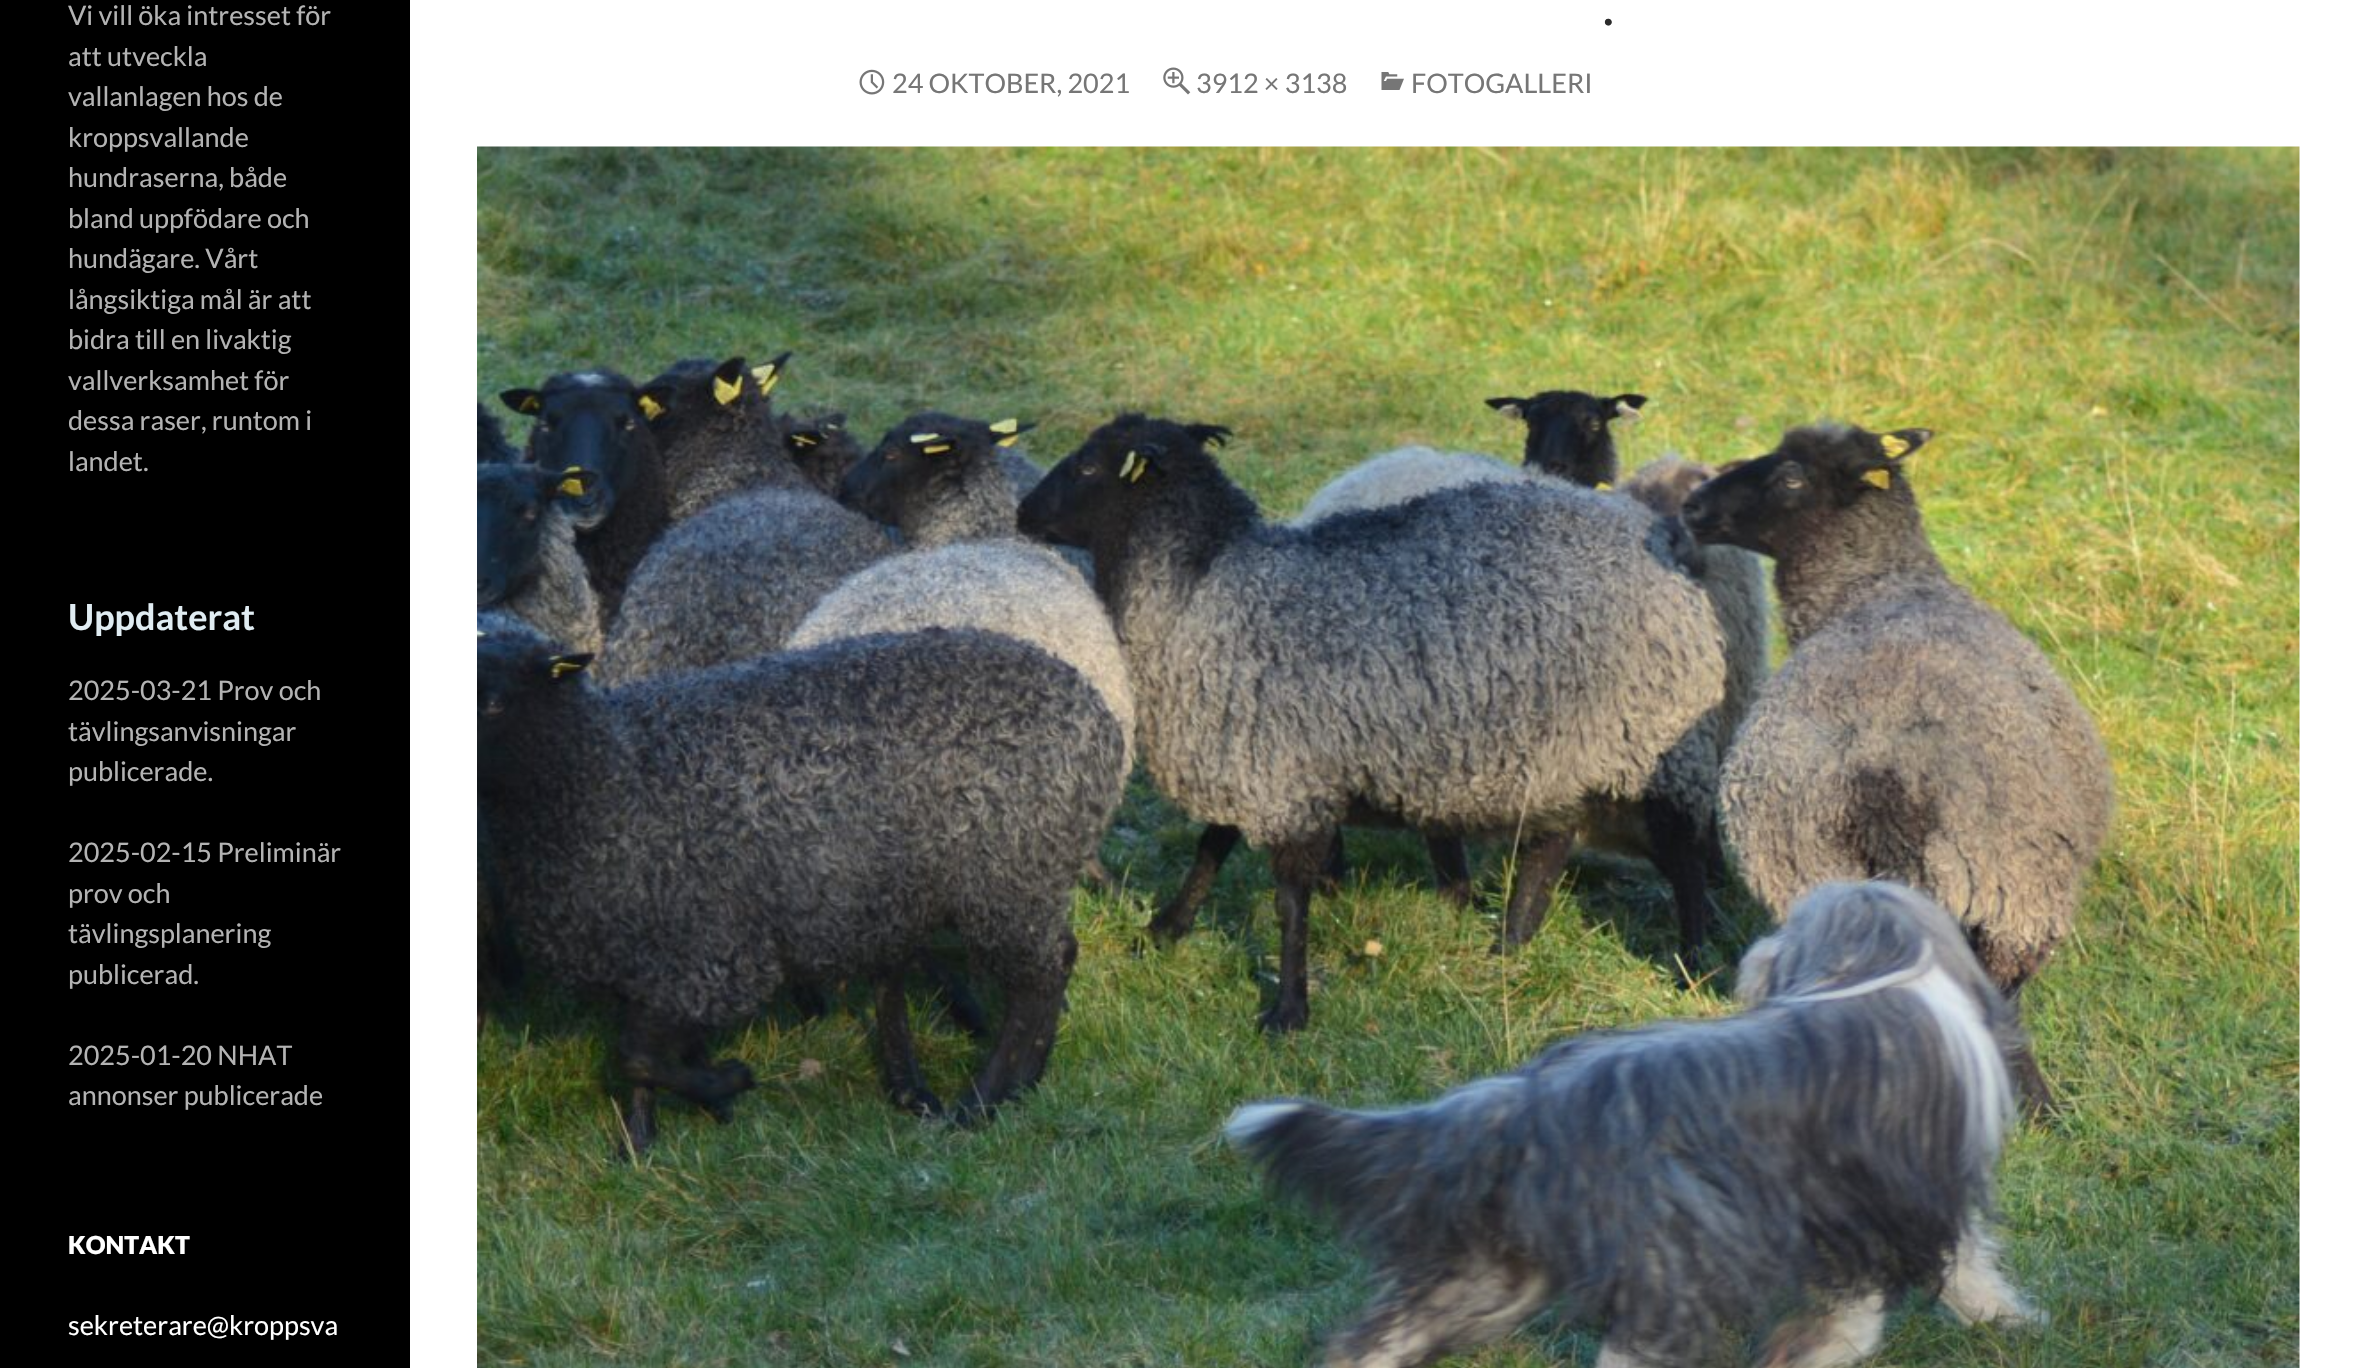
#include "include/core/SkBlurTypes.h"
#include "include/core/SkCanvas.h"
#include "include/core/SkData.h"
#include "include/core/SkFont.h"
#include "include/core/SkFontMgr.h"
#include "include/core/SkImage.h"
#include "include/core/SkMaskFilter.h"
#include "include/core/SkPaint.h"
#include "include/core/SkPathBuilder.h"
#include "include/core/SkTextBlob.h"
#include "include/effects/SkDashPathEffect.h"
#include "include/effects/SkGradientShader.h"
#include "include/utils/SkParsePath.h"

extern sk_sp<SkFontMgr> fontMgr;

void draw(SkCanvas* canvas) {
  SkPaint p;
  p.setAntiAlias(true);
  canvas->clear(SK_ColorWHITE);
  p.setColor(SK_ColorBLACK);
  canvas->drawRect(SkRect::MakeLTRB(0, 0, 410, 1368), p);
  canvas->drawImageRect(SkImages::DeferredFromEncodedData(SkData::MakeFromFileName("images/1.png")), SkRect::MakeLTRB(859, 69, 885, 95), SkSamplingOptions());
  canvas->drawImageRect(SkImages::DeferredFromEncodedData(SkData::MakeFromFileName("images/2.png")), SkRect::MakeLTRB(1163, 67, 1191, 95), SkSamplingOptions());
  canvas->drawImageRect(SkImages::DeferredFromEncodedData(SkData::MakeFromFileName("images/3.png")), SkRect::MakeLTRB(1381, 72, 1404, 90), SkSamplingOptions());
  canvas->drawImageRect(SkImages::DeferredFromEncodedData(SkData::MakeFromFileName("images/4.png")), SkRect::MakeLTRB(477, 146, 2300, 1368), SkSamplingOptions());
  SkFont font1(fontMgr->matchFamilyStyle("Lato", SkFontStyle::Normal()), 27);
  font1.setSubpixel(true);
  p.setColor(SkColorSetRGB(179, 179, 179));
  canvas->drawString("Vi vill öka intresset för", 68, 25, font1, p);
  canvas->drawString("att utveckla", 68, 66, font1, p);
  canvas->drawString("vallanlagen hos de", 68, 106, font1, p);
  canvas->drawString("kroppsvallande", 68, 147, font1, p);
  canvas->drawString("hundraserna, både", 68, 187, font1, p);
  canvas->drawString("bland uppfödare och", 68, 228, font1, p);
  canvas->drawString("hundägare. Vårt", 68, 268, font1, p);
  canvas->drawString("långsiktiga mål är att", 68, 309, font1, p);
  canvas->drawString("bidra till en livaktig", 68, 349, font1, p);
  canvas->drawString("vallverksamhet för", 68, 390, font1, p);
  canvas->drawString("dessa raser, runtom i", 68, 430, font1, p);
  canvas->drawString("landet.", 68, 471, font1, p);
  SkFont font2(fontMgr->matchFamilyStyle("Lato", SkFontStyle::Bold()), 36);
  font2.setSubpixel(true);
  p.setColor(SkColorSetRGB(224, 236, 242));
  canvas->drawString("Uppdaterat", 68, 630, font2, p);
  p.setColor(SkColorSetRGB(179, 179, 179));
  canvas->drawString("2025-03-21 Prov och", 68, 700, font1, p);
  canvas->drawString("tävlingsanvisningar", 68, 741, font1, p);
  canvas->drawString("publicerade.", 68, 781, font1, p);
  canvas->drawString("2025-02-15 Preliminär", 68, 862, font1, p);
  canvas->drawString("prov och", 68, 903, font1, p);
  canvas->drawString("tävlingsplanering", 68, 943, font1, p);
  canvas->drawString("publicerad.", 68, 984, font1, p);
  canvas->drawString("2025-01-20 NHAT", 68, 1065, font1, p);
  canvas->drawString("annonser publicerade", 68, 1105, font1, p);
  SkFont font3(fontMgr->matchFamilyStyle("Lato", SkFontStyle(900, SkFontStyle::kNormal_Width, SkFontStyle::kUpright_Slant)), 24.75f);
  font3.setSubpixel(true);
  p.setColor(SK_ColorWHITE);
  canvas->drawString("KONTAKT", 68, 1254, font3, p);
  canvas->drawString("sekreterare@kroppsva", 68, 1335, font1, p);
  SkFont font4(fontMgr->matchFamilyStyle("Lato", SkFontStyle(300, SkFontStyle::kNormal_Width, SkFontStyle::kUpright_Slant)), 74);
  font4.setSubpixel(true);
  p.setColor(SkColorSetRGB(43, 43, 43));
  canvas->drawString(".", 1601, 25, font4, p);
  p.setColor(SkColorSetRGB(118, 118, 118));
  canvas->drawString("24 OKTOBER, 2021", 892, 93, font1, p);
  canvas->drawString("3912 × 3138", 1196, 93, font1, p);
  canvas->drawString("FOTOGALLERI", 1411, 93, font1, p);
}
